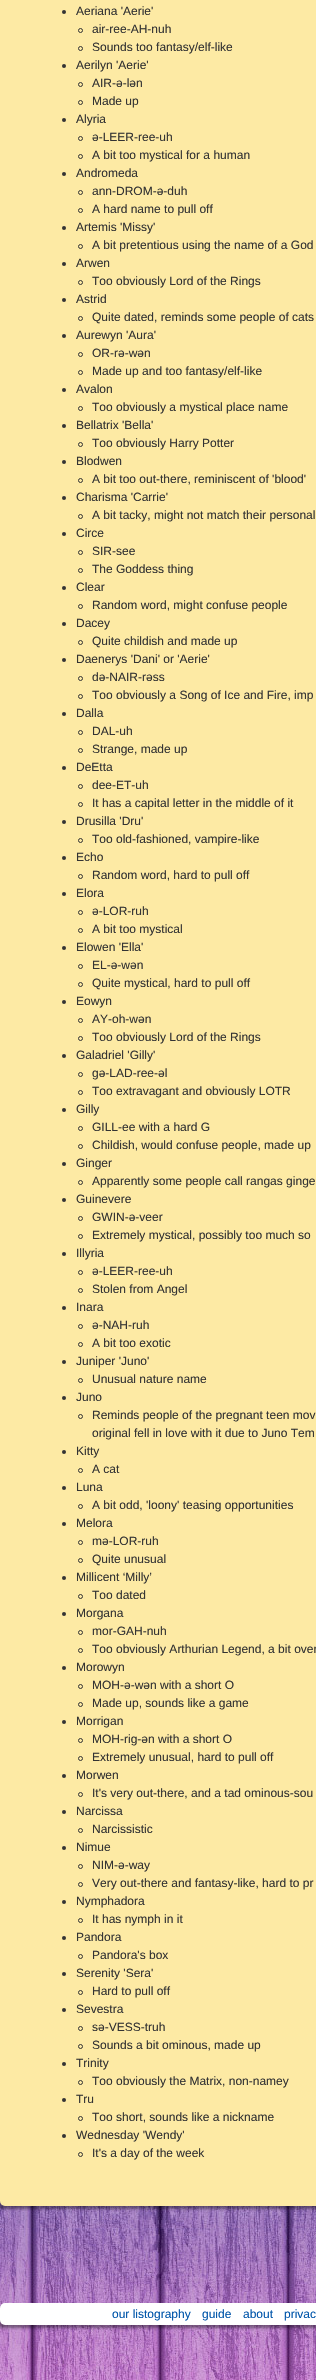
#include "include/core/SkBlurTypes.h"
#include "include/core/SkCanvas.h"
#include "include/core/SkData.h"
#include "include/core/SkFont.h"
#include "include/core/SkFontMgr.h"
#include "include/core/SkImage.h"
#include "include/core/SkMaskFilter.h"
#include "include/core/SkPaint.h"
#include "include/core/SkPathBuilder.h"
#include "include/core/SkTextBlob.h"
#include "include/effects/SkDashPathEffect.h"
#include "include/effects/SkGradientShader.h"
#include "include/utils/SkParsePath.h"

extern sk_sp<SkFontMgr> fontMgr;

void draw(SkCanvas* canvas) {
  SkPaint p;
  p.setAntiAlias(true);
  canvas->clear(SK_ColorWHITE);
  canvas->drawImageRect(SkImages::DeferredFromEncodedData(SkData::MakeFromFileName("images/1.png")), SkRect::MakeLTRB(0, 2201, 316, 2380), SkSamplingOptions());
  p.setColor(SkColorSetARGB(102, 0, 0, 0));
  p.setMaskFilter(SkMaskFilter::MakeBlur(kNormal_SkBlurStyle, 1.5f));
  canvas->drawRoundRect(SkRect::MakeLTRB(-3, -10, 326, 2209), 5, 5, p);
  p.setMaskFilter(nullptr);
  p.setColor(SkColorSetRGB(253, 234, 164));
  canvas->drawRoundRect(SkRect::MakeLTRB(0, -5, 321, 2206), 5, 5, p);
  p.setColor(SkColorSetRGB(51, 51, 51));
  canvas->drawCircle(64, 12, 2, p);
  p.setStyle(SkPaint::kStroke_Style);
  p.setStrokeWidth(1);
  canvas->drawCircle(80.5f, 30.5f, 2, p);
  canvas->drawCircle(80.5f, 48.5f, 2, p);
  p.setStyle(SkPaint::kFill_Style);
  canvas->drawCircle(64, 66, 2, p);
  p.setStyle(SkPaint::kStroke_Style);
  canvas->drawCircle(80.5f, 84.5f, 2, p);
  canvas->drawCircle(80.5f, 102.5f, 2, p);
  p.setStyle(SkPaint::kFill_Style);
  canvas->drawCircle(64, 120, 2, p);
  p.setStyle(SkPaint::kStroke_Style);
  canvas->drawCircle(80.5f, 138.5f, 2, p);
  canvas->drawCircle(80.5f, 156.5f, 2, p);
  p.setStyle(SkPaint::kFill_Style);
  canvas->drawCircle(64, 174, 2, p);
  p.setStyle(SkPaint::kStroke_Style);
  canvas->drawCircle(80.5f, 192.5f, 2, p);
  canvas->drawCircle(80.5f, 210.5f, 2, p);
  p.setStyle(SkPaint::kFill_Style);
  canvas->drawCircle(64, 228, 2, p);
  p.setStyle(SkPaint::kStroke_Style);
  canvas->drawCircle(80.5f, 246.5f, 2, p);
  p.setStyle(SkPaint::kFill_Style);
  canvas->drawCircle(64, 264, 2, p);
  p.setStyle(SkPaint::kStroke_Style);
  canvas->drawCircle(80.5f, 282.5f, 2, p);
  p.setStyle(SkPaint::kFill_Style);
  canvas->drawCircle(64, 300, 2, p);
  p.setStyle(SkPaint::kStroke_Style);
  canvas->drawCircle(80.5f, 318.5f, 2, p);
  p.setStyle(SkPaint::kFill_Style);
  canvas->drawCircle(64, 336, 2, p);
  p.setStyle(SkPaint::kStroke_Style);
  canvas->drawCircle(80.5f, 354.5f, 2, p);
  canvas->drawCircle(80.5f, 372.5f, 2, p);
  p.setStyle(SkPaint::kFill_Style);
  canvas->drawCircle(64, 390, 2, p);
  p.setStyle(SkPaint::kStroke_Style);
  canvas->drawCircle(80.5f, 408.5f, 2, p);
  p.setStyle(SkPaint::kFill_Style);
  canvas->drawCircle(64, 426, 2, p);
  p.setStyle(SkPaint::kStroke_Style);
  canvas->drawCircle(80.5f, 444.5f, 2, p);
  p.setStyle(SkPaint::kFill_Style);
  canvas->drawCircle(64, 462, 2, p);
  p.setStyle(SkPaint::kStroke_Style);
  canvas->drawCircle(80.5f, 480.5f, 2, p);
  p.setStyle(SkPaint::kFill_Style);
  canvas->drawCircle(64, 498, 2, p);
  p.setStyle(SkPaint::kStroke_Style);
  canvas->drawCircle(80.5f, 516.5f, 2, p);
  p.setStyle(SkPaint::kFill_Style);
  canvas->drawCircle(64, 534, 2, p);
  p.setStyle(SkPaint::kStroke_Style);
  canvas->drawCircle(80.5f, 552.5f, 2, p);
  canvas->drawCircle(80.5f, 570.5f, 2, p);
  p.setStyle(SkPaint::kFill_Style);
  canvas->drawCircle(64, 588, 2, p);
  p.setStyle(SkPaint::kStroke_Style);
  canvas->drawCircle(80.5f, 606.5f, 2, p);
  p.setStyle(SkPaint::kFill_Style);
  canvas->drawCircle(64, 624, 2, p);
  p.setStyle(SkPaint::kStroke_Style);
  canvas->drawCircle(80.5f, 642.5f, 2, p);
  p.setStyle(SkPaint::kFill_Style);
  canvas->drawCircle(64, 660, 2, p);
  p.setStyle(SkPaint::kStroke_Style);
  canvas->drawCircle(80.5f, 678.5f, 2, p);
  canvas->drawCircle(80.5f, 696.5f, 2, p);
  p.setStyle(SkPaint::kFill_Style);
  canvas->drawCircle(64, 714, 2, p);
  p.setStyle(SkPaint::kStroke_Style);
  canvas->drawCircle(80.5f, 732.5f, 2, p);
  canvas->drawCircle(80.5f, 750.5f, 2, p);
  p.setStyle(SkPaint::kFill_Style);
  canvas->drawCircle(64, 768, 2, p);
  p.setStyle(SkPaint::kStroke_Style);
  canvas->drawCircle(80.5f, 786.5f, 2, p);
  canvas->drawCircle(80.5f, 804.5f, 2, p);
  p.setStyle(SkPaint::kFill_Style);
  canvas->drawCircle(64, 822, 2, p);
  p.setStyle(SkPaint::kStroke_Style);
  canvas->drawCircle(80.5f, 840.5f, 2, p);
  p.setStyle(SkPaint::kFill_Style);
  canvas->drawCircle(64, 858, 2, p);
  p.setStyle(SkPaint::kStroke_Style);
  canvas->drawCircle(80.5f, 876.5f, 2, p);
  p.setStyle(SkPaint::kFill_Style);
  canvas->drawCircle(64, 894, 2, p);
  p.setStyle(SkPaint::kStroke_Style);
  canvas->drawCircle(80.5f, 912.5f, 2, p);
  canvas->drawCircle(80.5f, 930.5f, 2, p);
  p.setStyle(SkPaint::kFill_Style);
  canvas->drawCircle(64, 948, 2, p);
  p.setStyle(SkPaint::kStroke_Style);
  canvas->drawCircle(80.5f, 966.5f, 2, p);
  canvas->drawCircle(80.5f, 984.5f, 2, p);
  p.setStyle(SkPaint::kFill_Style);
  canvas->drawCircle(64, 1002, 2, p);
  p.setStyle(SkPaint::kStroke_Style);
  canvas->drawCircle(80.5f, 1020.5f, 2, p);
  canvas->drawCircle(80.5f, 1038.5f, 2, p);
  p.setStyle(SkPaint::kFill_Style);
  canvas->drawCircle(64, 1056, 2, p);
  p.setStyle(SkPaint::kStroke_Style);
  canvas->drawCircle(80.5f, 1074.5f, 2, p);
  canvas->drawCircle(80.5f, 1092.5f, 2, p);
  p.setStyle(SkPaint::kFill_Style);
  canvas->drawCircle(64, 1110, 2, p);
  p.setStyle(SkPaint::kStroke_Style);
  canvas->drawCircle(80.5f, 1128.5f, 2, p);
  canvas->drawCircle(80.5f, 1146.5f, 2, p);
  p.setStyle(SkPaint::kFill_Style);
  canvas->drawCircle(64, 1164, 2, p);
  p.setStyle(SkPaint::kStroke_Style);
  canvas->drawCircle(80.5f, 1182.5f, 2, p);
  p.setStyle(SkPaint::kFill_Style);
  canvas->drawCircle(64, 1200, 2, p);
  p.setStyle(SkPaint::kStroke_Style);
  canvas->drawCircle(80.5f, 1218.5f, 2, p);
  canvas->drawCircle(80.5f, 1236.5f, 2, p);
  p.setStyle(SkPaint::kFill_Style);
  canvas->drawCircle(64, 1254, 2, p);
  p.setStyle(SkPaint::kStroke_Style);
  canvas->drawCircle(80.5f, 1272.5f, 2, p);
  canvas->drawCircle(80.5f, 1290.5f, 2, p);
  p.setStyle(SkPaint::kFill_Style);
  canvas->drawCircle(64, 1308, 2, p);
  p.setStyle(SkPaint::kStroke_Style);
  canvas->drawCircle(80.5f, 1326.5f, 2, p);
  canvas->drawCircle(80.5f, 1344.5f, 2, p);
  p.setStyle(SkPaint::kFill_Style);
  canvas->drawCircle(64, 1362, 2, p);
  p.setStyle(SkPaint::kStroke_Style);
  canvas->drawCircle(80.5f, 1380.5f, 2, p);
  p.setStyle(SkPaint::kFill_Style);
  canvas->drawCircle(64, 1398, 2, p);
  p.setStyle(SkPaint::kStroke_Style);
  canvas->drawCircle(80.5f, 1416.5f, 2, p);
  p.setStyle(SkPaint::kFill_Style);
  canvas->drawCircle(64, 1452, 2, p);
  p.setStyle(SkPaint::kStroke_Style);
  canvas->drawCircle(80.5f, 1470.5f, 2, p);
  p.setStyle(SkPaint::kFill_Style);
  canvas->drawCircle(64, 1488, 2, p);
  p.setStyle(SkPaint::kStroke_Style);
  canvas->drawCircle(80.5f, 1506.5f, 2, p);
  p.setStyle(SkPaint::kFill_Style);
  canvas->drawCircle(64, 1524, 2, p);
  p.setStyle(SkPaint::kStroke_Style);
  canvas->drawCircle(80.5f, 1542.5f, 2, p);
  canvas->drawCircle(80.5f, 1560.5f, 2, p);
  p.setStyle(SkPaint::kFill_Style);
  canvas->drawCircle(64, 1578, 2, p);
  p.setStyle(SkPaint::kStroke_Style);
  canvas->drawCircle(80.5f, 1596.5f, 2, p);
  p.setStyle(SkPaint::kFill_Style);
  canvas->drawCircle(64, 1614, 2, p);
  p.setStyle(SkPaint::kStroke_Style);
  canvas->drawCircle(80.5f, 1632.5f, 2, p);
  canvas->drawCircle(80.5f, 1650.5f, 2, p);
  p.setStyle(SkPaint::kFill_Style);
  canvas->drawCircle(64, 1668, 2, p);
  p.setStyle(SkPaint::kStroke_Style);
  canvas->drawCircle(80.5f, 1686.5f, 2, p);
  canvas->drawCircle(80.5f, 1704.5f, 2, p);
  p.setStyle(SkPaint::kFill_Style);
  canvas->drawCircle(64, 1722, 2, p);
  p.setStyle(SkPaint::kStroke_Style);
  canvas->drawCircle(80.5f, 1740.5f, 2, p);
  canvas->drawCircle(80.5f, 1758.5f, 2, p);
  p.setStyle(SkPaint::kFill_Style);
  canvas->drawCircle(64, 1776, 2, p);
  p.setStyle(SkPaint::kStroke_Style);
  canvas->drawCircle(80.5f, 1794.5f, 2, p);
  p.setStyle(SkPaint::kFill_Style);
  canvas->drawCircle(64, 1812, 2, p);
  p.setStyle(SkPaint::kStroke_Style);
  canvas->drawCircle(80.5f, 1830.5f, 2, p);
  p.setStyle(SkPaint::kFill_Style);
  canvas->drawCircle(64, 1848, 2, p);
  p.setStyle(SkPaint::kStroke_Style);
  canvas->drawCircle(80.5f, 1866.5f, 2, p);
  canvas->drawCircle(80.5f, 1884.5f, 2, p);
  p.setStyle(SkPaint::kFill_Style);
  canvas->drawCircle(64, 1902, 2, p);
  p.setStyle(SkPaint::kStroke_Style);
  canvas->drawCircle(80.5f, 1920.5f, 2, p);
  p.setStyle(SkPaint::kFill_Style);
  canvas->drawCircle(64, 1938, 2, p);
  p.setStyle(SkPaint::kStroke_Style);
  canvas->drawCircle(80.5f, 1956.5f, 2, p);
  p.setStyle(SkPaint::kFill_Style);
  canvas->drawCircle(64, 1974, 2, p);
  p.setStyle(SkPaint::kStroke_Style);
  canvas->drawCircle(80.5f, 1992.5f, 2, p);
  p.setStyle(SkPaint::kFill_Style);
  canvas->drawCircle(64, 2010, 2, p);
  p.setStyle(SkPaint::kStroke_Style);
  canvas->drawCircle(80.5f, 2028.5f, 2, p);
  canvas->drawCircle(80.5f, 2046.5f, 2, p);
  p.setStyle(SkPaint::kFill_Style);
  canvas->drawCircle(64, 2064, 2, p);
  p.setStyle(SkPaint::kStroke_Style);
  canvas->drawCircle(80.5f, 2082.5f, 2, p);
  p.setStyle(SkPaint::kFill_Style);
  canvas->drawCircle(64, 2100, 2, p);
  p.setStyle(SkPaint::kStroke_Style);
  canvas->drawCircle(80.5f, 2118.5f, 2, p);
  p.setStyle(SkPaint::kFill_Style);
  canvas->drawCircle(64, 2136, 2, p);
  p.setStyle(SkPaint::kStroke_Style);
  canvas->drawCircle(80.5f, 2154.5f, 2, p);
  p.setStyle(SkPaint::kFill_Style);
  p.setColor(SkColorSetARGB(102, 0, 0, 0));
  p.setMaskFilter(SkMaskFilter::MakeBlur(kNormal_SkBlurStyle, 1.5f));
  canvas->drawRoundRect(SkRect::MakeLTRB(-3, 2306, 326, 2328), 5, 5, p);
  p.setMaskFilter(nullptr);
  p.setColor(SK_ColorWHITE);
  canvas->drawRoundRect(SkRect::MakeLTRB(0, 2303, 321, 2325), 5, 5, p);
  SkFont font1(fontMgr->matchFamilyStyle("Liberation Sans", SkFontStyle::Normal()), 12);
  font1.setSubpixel(true);
  p.setColor(SkColorSetRGB(51, 51, 51));
  canvas->drawString("Aeriana 'Aerie'", 76, 15, font1, p);
  canvas->drawString("air-ree-AH-nuh", 92, 33, font1, p);
  canvas->drawString("Sounds too fantasy/elf-like", 92, 51, font1, p);
  canvas->drawString("Aerilyn 'Aerie'", 76, 69, font1, p);
  canvas->drawString("AIR-ə-lən", 92, 87, font1, p);
  canvas->drawString("Made up", 92, 105, font1, p);
  canvas->drawString("Alyria", 76, 123, font1, p);
  canvas->drawString("ə-LEER-ree-uh", 92, 141, font1, p);
  canvas->drawString("A bit too mystical for a human", 92, 159, font1, p);
  canvas->drawString("Andromeda", 76, 177, font1, p);
  canvas->drawString("ann-DROM-ə-duh", 92, 195, font1, p);
  canvas->drawString("A hard name to pull off", 92, 213, font1, p);
  canvas->drawString("Artemis 'Missy'", 76, 231, font1, p);
  canvas->drawString("A bit pretentious using the name of a God", 92, 249, font1, p);
  canvas->drawString("Arwen", 76, 267, font1, p);
  canvas->drawString("Too obviously Lord of the Rings", 92, 285, font1, p);
  canvas->drawString("Astrid", 76, 303, font1, p);
  canvas->drawString("Quite dated, reminds some people of cats", 92, 321, font1, p);
  canvas->drawString("Aurewyn 'Aura'", 76, 339, font1, p);
  canvas->drawString("OR-rə-wən", 92, 357, font1, p);
  canvas->drawString("Made up and too fantasy/elf-like", 92, 375, font1, p);
  canvas->drawString("Avalon", 76, 393, font1, p);
  canvas->drawString("Too obviously a mystical place name", 92, 411, font1, p);
  canvas->drawString("Bellatrix 'Bella'", 76, 429, font1, p);
  canvas->drawString("Too obviously Harry Potter", 92, 447, font1, p);
  canvas->drawString("Blodwen", 76, 465, font1, p);
  canvas->drawString("A bit too out-there, reminiscent of 'blood'", 92, 483, font1, p);
  canvas->drawString("Charisma 'Carrie'", 76, 501, font1, p);
  canvas->drawString("A bit tacky, might not match their personal", 92, 519, font1, p);
  canvas->drawString("Circe", 76, 537, font1, p);
  canvas->drawString("SIR-see", 92, 555, font1, p);
  canvas->drawString("The Goddess thing", 92, 573, font1, p);
  canvas->drawString("Clear", 76, 591, font1, p);
  canvas->drawString("Random word, might confuse people", 92, 609, font1, p);
  canvas->drawString("Dacey", 76, 627, font1, p);
  canvas->drawString("Quite childish and made up", 92, 645, font1, p);
  canvas->drawString("Daenerys 'Dani' or 'Aerie'", 76, 663, font1, p);
  canvas->drawString("də-NAIR-rəss", 92, 681, font1, p);
  canvas->drawString("Too obviously a Song of Ice and Fire, imp", 92, 699, font1, p);
  canvas->drawString("Dalla", 76, 717, font1, p);
  canvas->drawString("DAL-uh", 92, 735, font1, p);
  canvas->drawString("Strange, made up", 92, 753, font1, p);
  canvas->drawString("DeEtta", 76, 771, font1, p);
  canvas->drawString("dee-ET-uh", 92, 789, font1, p);
  canvas->drawString("It has a capital letter in the middle of it", 92, 807, font1, p);
  canvas->drawString("Drusilla 'Dru'", 76, 825, font1, p);
  canvas->drawString("Too old-fashioned, vampire-like", 92, 843, font1, p);
  canvas->drawString("Echo", 76, 861, font1, p);
  canvas->drawString("Random word, hard to pull off", 92, 879, font1, p);
  canvas->drawString("Elora", 76, 897, font1, p);
  canvas->drawString("ə-LOR-ruh", 92, 915, font1, p);
  canvas->drawString("A bit too mystical", 92, 933, font1, p);
  canvas->drawString("Elowen 'Ella'", 76, 951, font1, p);
  canvas->drawString("EL-ə-wən", 92, 969, font1, p);
  canvas->drawString("Quite mystical, hard to pull off", 92, 987, font1, p);
  canvas->drawString("Eowyn", 76, 1005, font1, p);
  canvas->drawString("AY-oh-wən", 92, 1023, font1, p);
  canvas->drawString("Too obviously Lord of the Rings", 92, 1041, font1, p);
  canvas->drawString("Galadriel 'Gilly'", 76, 1059, font1, p);
  canvas->drawString("gə-LAD-ree-əl", 92, 1077, font1, p);
  canvas->drawString("Too extravagant and obviously LOTR", 92, 1095, font1, p);
  canvas->drawString("Gilly", 76, 1113, font1, p);
  canvas->drawString("GILL-ee with a hard G", 92, 1131, font1, p);
  canvas->drawString("Childish, would confuse people, made up", 92, 1149, font1, p);
  canvas->drawString("Ginger", 76, 1167, font1, p);
  canvas->drawString("Apparently some people call rangas ginge", 92, 1185, font1, p);
  canvas->drawString("Guinevere", 76, 1203, font1, p);
  canvas->drawString("GWIN-ə-veer", 92, 1221, font1, p);
  canvas->drawString("Extremely mystical, possibly too much so", 92, 1239, font1, p);
  canvas->drawString("Illyria", 76, 1257, font1, p);
  canvas->drawString("ə-LEER-ree-uh", 92, 1275, font1, p);
  canvas->drawString("Stolen from Angel", 92, 1293, font1, p);
  canvas->drawString("Inara", 76, 1311, font1, p);
  canvas->drawString("ə-NAH-ruh", 92, 1329, font1, p);
  canvas->drawString("A bit too exotic", 92, 1347, font1, p);
  canvas->drawString("Juniper 'Juno'", 76, 1365, font1, p);
  canvas->drawString("Unusual nature name", 92, 1383, font1, p);
  canvas->drawString("Juno", 76, 1401, font1, p);
  canvas->drawString("Reminds people of the pregnant teen mov", 92, 1419, font1, p);
  canvas->drawString("original fell in love with it due to Juno Tem", 92, 1437, font1, p);
  canvas->drawString("Kitty", 76, 1455, font1, p);
  canvas->drawString("A cat", 92, 1473, font1, p);
  canvas->drawString("Luna", 76, 1491, font1, p);
  canvas->drawString("A bit odd, 'loony' teasing opportunities", 92, 1509, font1, p);
  canvas->drawString("Melora", 76, 1527, font1, p);
  canvas->drawString("mə-LOR-ruh", 92, 1545, font1, p);
  canvas->drawString("Quite unusual", 92, 1563, font1, p);
  canvas->drawString("Millicent ‘Milly’", 76, 1581, font1, p);
  canvas->drawString("Too dated", 92, 1599, font1, p);
  canvas->drawString("Morgana", 76, 1617, font1, p);
  canvas->drawString("mor-GAH-nuh", 92, 1635, font1, p);
  canvas->drawString("Too obviously Arthurian Legend, a bit over", 92, 1653, font1, p);
  canvas->drawString("Morowyn", 76, 1671, font1, p);
  canvas->drawString("MOH-ə-wən with a short O", 92, 1689, font1, p);
  canvas->drawString("Made up, sounds like a game", 92, 1707, font1, p);
  canvas->drawString("Morrigan", 76, 1725, font1, p);
  canvas->drawString("MOH-rig-ən with a short O", 92, 1743, font1, p);
  canvas->drawString("Extremely unusual, hard to pull off", 92, 1761, font1, p);
  canvas->drawString("Morwen", 76, 1779, font1, p);
  canvas->drawString("It's very out-there, and a tad ominous-sou", 92, 1797, font1, p);
  canvas->drawString("Narcissa", 76, 1815, font1, p);
  canvas->drawString("Narcissistic", 92, 1833, font1, p);
  canvas->drawString("Nimue", 76, 1851, font1, p);
  canvas->drawString("NIM-ə-way", 92, 1869, font1, p);
  canvas->drawString("Very out-there and fantasy-like, hard to pr", 92, 1887, font1, p);
  canvas->drawString("Nymphadora", 76, 1905, font1, p);
  canvas->drawString("It has nymph in it", 92, 1923, font1, p);
  canvas->drawString("Pandora", 76, 1941, font1, p);
  canvas->drawString("Pandora's box", 92, 1959, font1, p);
  canvas->drawString("Serenity 'Sera'", 76, 1977, font1, p);
  canvas->drawString("Hard to pull off", 92, 1995, font1, p);
  canvas->drawString("Sevestra", 76, 2013, font1, p);
  canvas->drawString("sə-VESS-truh", 92, 2031, font1, p);
  canvas->drawString("Sounds a bit ominous, made up", 92, 2049, font1, p);
  canvas->drawString("Trinity", 76, 2067, font1, p);
  canvas->drawString("Too obviously the Matrix, non-namey", 92, 2085, font1, p);
  canvas->drawString("Tru", 76, 2103, font1, p);
  canvas->drawString("Too short, sounds like a nickname", 92, 2121, font1, p);
  canvas->drawString("Wednesday 'Wendy'", 76, 2139, font1, p);
  canvas->drawString("It's a day of the week", 92, 2157, font1, p);
  p.setColor(SkColorSetRGB(0, 85, 170));
  canvas->drawString("our listography", 112, 2318, font1, p);
  canvas->drawString("guide", 202, 2318, font1, p);
  canvas->drawString("about", 243, 2318, font1, p);
  canvas->drawString("privac", 284, 2318, font1, p);
}
